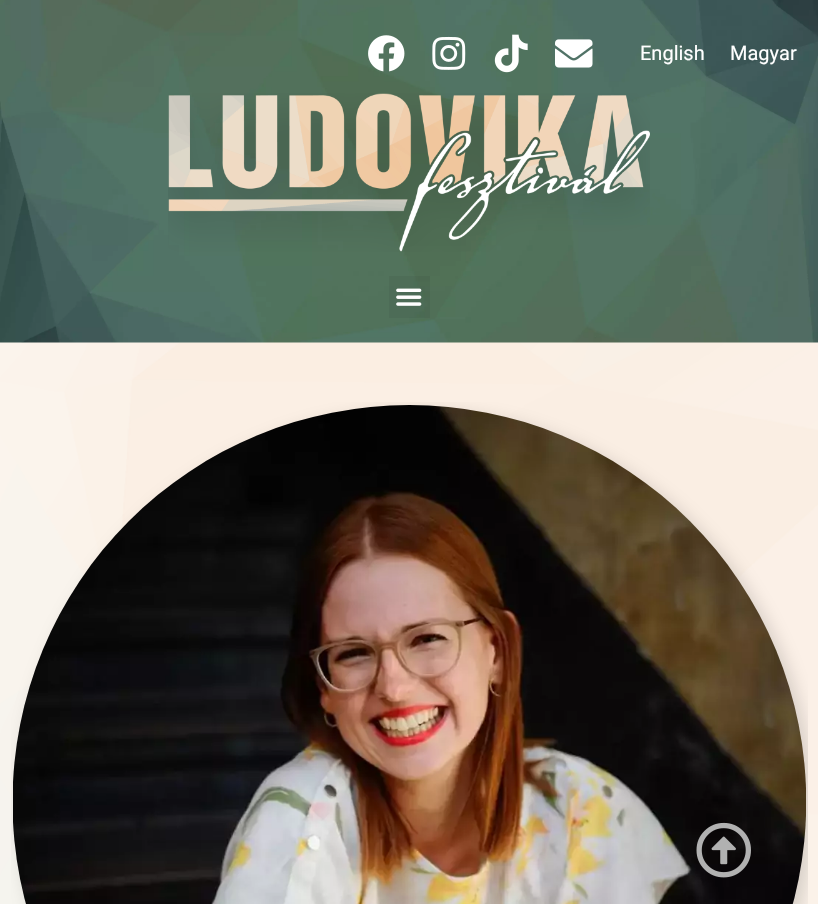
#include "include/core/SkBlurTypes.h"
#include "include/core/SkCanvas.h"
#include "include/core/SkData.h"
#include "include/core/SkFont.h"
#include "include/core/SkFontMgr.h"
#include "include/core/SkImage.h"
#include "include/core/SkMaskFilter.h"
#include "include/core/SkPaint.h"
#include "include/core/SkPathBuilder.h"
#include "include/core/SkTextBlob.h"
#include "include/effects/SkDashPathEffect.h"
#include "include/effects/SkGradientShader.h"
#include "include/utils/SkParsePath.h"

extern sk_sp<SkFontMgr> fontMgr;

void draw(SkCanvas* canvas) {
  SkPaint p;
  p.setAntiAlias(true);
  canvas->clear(SK_ColorWHITE);
  canvas->drawImageRect(SkImages::DeferredFromEncodedData(SkData::MakeFromFileName("images/1.png")), SkRect::MakeLTRB(0, 342, 818, 904), SkSamplingOptions());
  canvas->drawImageRect(SkImages::DeferredFromEncodedData(SkData::MakeFromFileName("images/2.png")), SkRect::MakeLTRB(0, 0, 818, 343), SkSamplingOptions());
  canvas->drawImageRect(SkImages::DeferredFromEncodedData(SkData::MakeFromFileName("images/3.png")), SkRect::MakeLTRB(368, 35, 405, 72), SkSamplingOptions());
  canvas->drawImageRect(SkImages::DeferredFromEncodedData(SkData::MakeFromFileName("images/4.png")), SkRect::MakeLTRB(432, 36, 466, 70), SkSamplingOptions());
  canvas->drawImageRect(SkImages::DeferredFromEncodedData(SkData::MakeFromFileName("images/5.png")), SkRect::MakeLTRB(494, 34, 528, 73), SkSamplingOptions());
  canvas->drawImageRect(SkImages::DeferredFromEncodedData(SkData::MakeFromFileName("images/6.png")), SkRect::MakeLTRB(555, 39, 593, 68), SkSamplingOptions());
  canvas->drawImageRect(SkImages::DeferredFromEncodedData(SkData::MakeFromFileName("images/7.png")), SkRect::MakeLTRB(168, 93, 650, 252), SkSamplingOptions());
  p.setColor(SkColorSetARGB(13, 0, 0, 0));
  canvas->drawRect(SkRect::MakeLTRB(389, 276, 430, 318), p);
  canvas->drawImageRect(SkImages::DeferredFromEncodedData(SkData::MakeFromFileName("images/8.png")), SkRect::MakeLTRB(396, 288, 422, 306), SkSamplingOptions());
  canvas->drawImageRect(SkImages::DeferredFromEncodedData(SkData::MakeFromFileName("images/10.png")), SkRect::MakeLTRB(11, 402, 808, 904), SkSamplingOptions());
  canvas->drawImageRect(SkImages::DeferredFromEncodedData(SkData::MakeFromFileName("images/9.png")), SkRect::MakeLTRB(696, 822, 751, 878), SkSamplingOptions());
  SkFont font1(fontMgr->matchFamilyStyle("Roboto", SkFontStyle::Normal()), 20);
  font1.setSubpixel(true);
  p.setColor(SK_ColorWHITE);
  canvas->drawString("English", 640, 60, font1, p);
  canvas->drawString("Magyar", 730, 60, font1, p);
}
